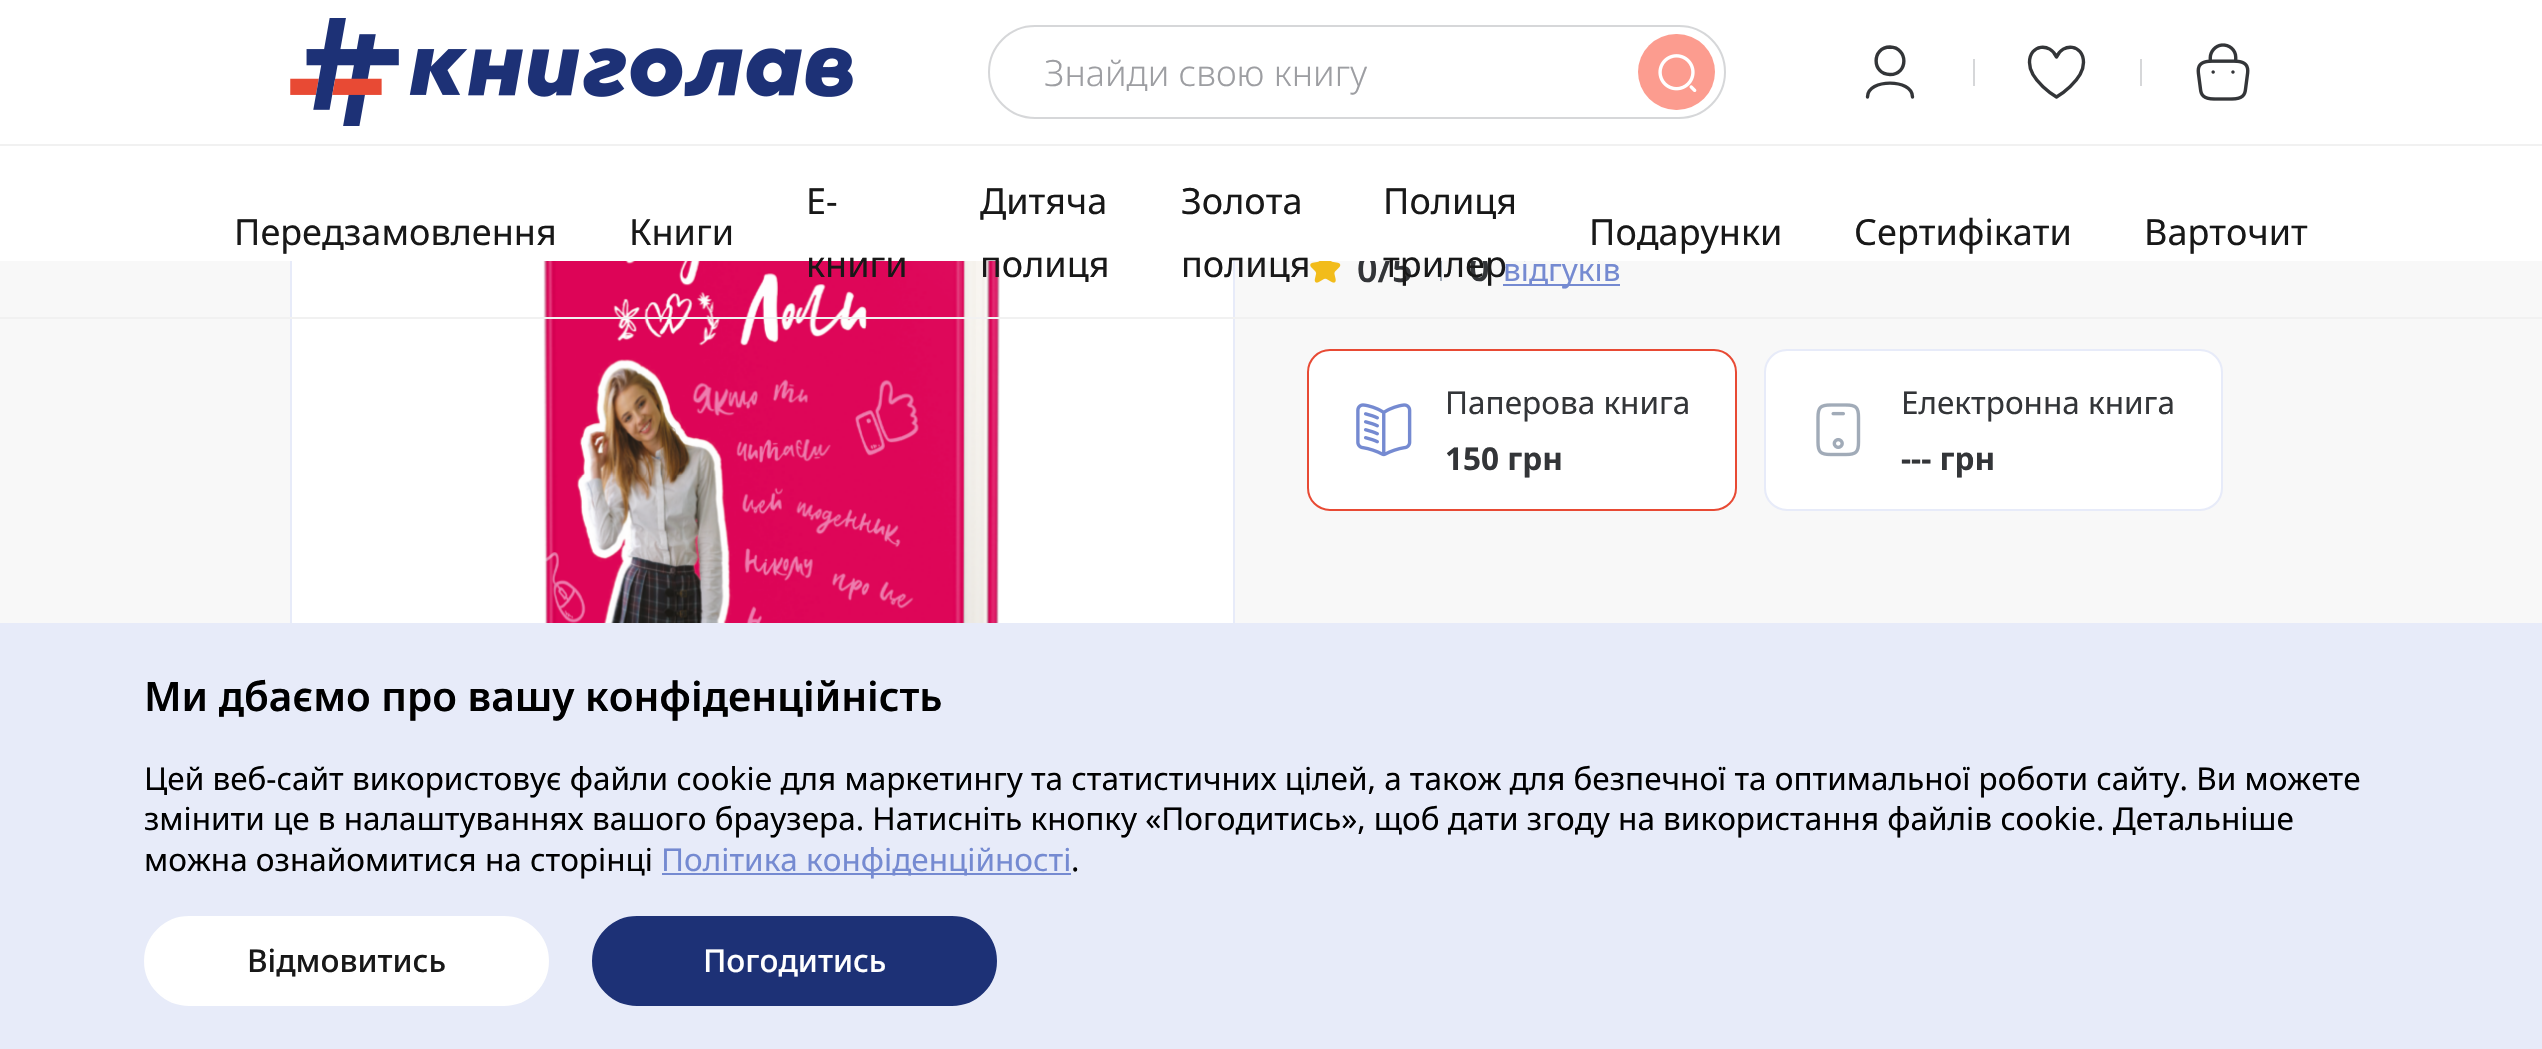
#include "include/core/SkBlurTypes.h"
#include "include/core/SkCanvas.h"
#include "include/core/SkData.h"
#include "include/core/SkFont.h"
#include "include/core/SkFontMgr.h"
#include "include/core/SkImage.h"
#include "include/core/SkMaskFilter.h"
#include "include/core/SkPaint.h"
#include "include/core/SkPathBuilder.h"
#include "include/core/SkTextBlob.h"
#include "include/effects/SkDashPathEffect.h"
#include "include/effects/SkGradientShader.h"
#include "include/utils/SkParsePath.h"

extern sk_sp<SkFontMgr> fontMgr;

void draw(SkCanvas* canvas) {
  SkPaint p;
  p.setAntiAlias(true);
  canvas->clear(SkColorSetRGB(248, 248, 248));
  p.setColor(SK_ColorWHITE);
  canvas->drawRect(SkRect::MakeLTRB(292, 261, 1233, 623), p);
  p.setStyle(SkPaint::kStroke_Style);
  p.setStrokeWidth(2);
  p.setColor(SkColorSetRGB(231, 235, 249));
  canvas->drawRect(SkRect::MakeLTRB(291, -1, 1234, 845), p);
  canvas->drawImageRect(SkImages::DeferredFromEncodedData(SkData::MakeFromFileName("images/4.png")), SkRect::MakeLTRB(543, 261, 1000, 623), SkSamplingOptions());
  p.setStyle(SkPaint::kFill_Style);
  p.setColor(SkColorSetRGB(241, 241, 241));
  canvas->drawRect(SkRect::MakeLTRB(0, 317, 2542, 319), p);
  canvas->drawImageRect(SkImages::DeferredFromEncodedData(SkData::MakeFromFileName("images/5.png")), SkRect::MakeLTRB(1310, 261, 1341, 283), SkSamplingOptions());
  p.setColor(SkColorSetRGB(161, 171, 184));
  canvas->drawRect(SkRect::MakeLTRB(1440, 254, 1442, 281), p);
  p.setColor(SkColorSetRGB(117, 138, 209));
  canvas->drawRect(SkRect::MakeLTRB(1503, 284, 1620, 286), p);
  p.setColor(SK_ColorWHITE);
  canvas->drawRoundRect(SkRect::MakeLTRB(1308, 350, 1736, 510), 22, 22, p);
  p.setStyle(SkPaint::kStroke_Style);
  p.setColor(SkColorSetRGB(232, 74, 52));
  canvas->drawRoundRect(SkRect::MakeLTRB(1308, 350, 1736, 510), 22, 22, p);
  canvas->drawImageRect(SkImages::DeferredFromEncodedData(SkData::MakeFromFileName("images/6.png")), SkRect::MakeLTRB(1356, 403, 1412, 457), SkSamplingOptions());
  p.setStyle(SkPaint::kFill_Style);
  p.setColor(SK_ColorWHITE);
  canvas->drawRoundRect(SkRect::MakeLTRB(1765, 350, 2222, 510), 22, 22, p);
  p.setStyle(SkPaint::kStroke_Style);
  p.setColor(SkColorSetRGB(231, 235, 249));
  canvas->drawRoundRect(SkRect::MakeLTRB(1765, 350, 2222, 510), 22, 22, p);
  canvas->drawImageRect(SkImages::DeferredFromEncodedData(SkData::MakeFromFileName("images/7.png")), SkRect::MakeLTRB(1816, 403, 1861, 457), SkSamplingOptions());
  p.setStyle(SkPaint::kFill_Style);
  canvas->drawRect(SkRect::MakeLTRB(0, 623, 2542, 1049), p);
  p.setColor(SkColorSetRGB(117, 138, 209));
  canvas->drawRect(SkRect::MakeLTRB(662, 873, 1071, 875), p);
  p.setColor(SK_ColorWHITE);
  canvas->drawRoundRect(SkRect::MakeLTRB(145, 917, 548, 1005), 44, 44, p);
  p.setStyle(SkPaint::kStroke_Style);
  canvas->drawRoundRect(SkRect::MakeLTRB(145, 917, 548, 1005), 44, 44, p);
  p.setStyle(SkPaint::kFill_Style);
  p.setColor(SkColorSetRGB(29, 49, 118));
  canvas->drawRoundRect(SkRect::MakeLTRB(593, 917, 996, 1005), 44, 44, p);
  p.setStyle(SkPaint::kStroke_Style);
  canvas->drawRoundRect(SkRect::MakeLTRB(593, 917, 996, 1005), 44, 44, p);
  SkFont font1(fontMgr->matchFamilyStyle("Noto Sans", SkFontStyle(600, SkFontStyle::kNormal_Width, SkFontStyle::kUpright_Slant)), 36);
  font1.setSubpixel(true);
  p.setStyle(SkPaint::kFill_Style);
  p.setColor(SkColorSetRGB(51, 53, 56));
  canvas->drawString("0/5", 1357, 282, font1, p);
  canvas->drawString("0", 1469, 281, font1, p);
  SkFont font2(fontMgr->matchFamilyStyle("Noto Sans", SkFontStyle::Normal()), 31.5f);
  font2.setSubpixel(true);
  p.setColor(SkColorSetRGB(117, 138, 209));
  canvas->drawString("відгуків", 1503, 281, font2, p);
  p.setColor(SK_ColorWHITE);
  canvas->drawRect(SkRect::MakeLTRB(0, 0, 2542, 261), p);
  canvas->drawImageRect(SkImages::DeferredFromEncodedData(SkData::MakeFromFileName("images/3.png")), SkRect::MakeLTRB(2196, 43, 2250, 101), SkSamplingOptions());
  p.setColor(SkColorSetRGB(214, 215, 217));
  canvas->drawRect(SkRect::MakeLTRB(2140, 59, 2142, 86), p);
  p.setStyle(SkPaint::kStroke_Style);
  p.setStrokeWidth(3.4f);
  p.setStrokeCap(SkPaint::kRound_Cap);
  p.setStrokeJoin(SkPaint::kRound_Join);
  p.setColor(SkColorSetRGB(51, 53, 56));
  canvas->drawPath(SkPathBuilder().moveTo(2056.5f, 57).cubicTo(2050.5f, 42.5f, 2029.5f, 44, 2029.5f, 62.5f).cubicTo(2029.5f, 81, 2056.5f, 97, 2056.5f, 97).cubicTo(2056.5f, 97, 2083.5f, 81, 2083.5f, 62.5f).cubicTo(2083.5f, 44, 2062.5f, 42.5f, 2056.5f, 57).close().detach(), p);
  p.setStyle(SkPaint::kFill_Style);
  p.setColor(SkColorSetRGB(214, 215, 217));
  canvas->drawRect(SkRect::MakeLTRB(1973, 59, 1975, 86), p);
  p.setStyle(SkPaint::kStroke_Style);
  p.setColor(SkColorSetRGB(51, 53, 56));
  canvas->drawPath(SkPathBuilder().moveTo(1912.5f, 97).cubicTo(1912.5f, 78.5f, 1867.5f, 78.5f, 1867.5f, 97).moveTo(1890, 74.5f).cubicTo(1871.5f, 74.5f, 1871.5f, 47, 1890, 47).cubicTo(1908.5f, 47.5f, 1908.5f, 74.5f, 1890, 74.5f).close().detach(), p);
  p.setStrokeWidth(2);
  p.setStrokeCap(SkPaint::kButt_Cap);
  p.setStrokeJoin(SkPaint::kMiter_Join);
  p.setColor(SkColorSetRGB(214, 215, 217));
  canvas->drawRoundRect(SkRect::MakeLTRB(989, 26, 1725, 118), 46, 46, p);
  p.setStyle(SkPaint::kFill_Style);
  p.setColor(SkColorSetRGB(252, 156, 143));
  canvas->drawRoundRect(SkRect::MakeLTRB(1638, 34, 1715, 110), 38, 38, p);
  canvas->drawImageRect(SkImages::DeferredFromEncodedData(SkData::MakeFromFileName("images/2.png")), SkRect::MakeLTRB(1658, 54, 1697, 92), SkSamplingOptions());
  SkFont font3(fontMgr->matchFamilyStyle("Noto Sans", SkFontStyle(300, SkFontStyle::kNormal_Width, SkFontStyle::kUpright_Slant)), 36);
  font3.setSubpixel(true);
  p.setColor(SkColorSetRGB(157, 158, 162));
  canvas->drawString("Знайди свою книгу", 1044, 86, font3, p);
  canvas->drawImageRect(SkImages::DeferredFromEncodedData(SkData::MakeFromFileName("images/1.png")), SkRect::MakeLTRB(290, 18, 853, 126), SkSamplingOptions());
  SkFont font4(fontMgr->matchFamilyStyle("Noto Sans", SkFontStyle::Normal()), 36);
  font4.setSubpixel(true);
  p.setColor(SkColorSetRGB(24, 24, 24));
  canvas->drawString("Варточит", 2144, 245, font4, p);
  canvas->drawString("Сертифікати", 1854, 245, font4, p);
  canvas->drawString("Подарунки", 1589, 245, font4, p);
  canvas->drawString("трилер", 1383, 277, font4, p);
  canvas->drawString("Полиця", 1383, 214, font4, p);
  canvas->drawString("полиця", 1181, 277, font4, p);
  canvas->drawString("Золота", 1181, 214, font4, p);
  canvas->drawString("полиця", 980, 277, font4, p);
  canvas->drawString("Дитяча", 980, 214, font4, p);
  canvas->drawString("книги", 806, 277, font4, p);
  canvas->drawString("Е-", 806, 214, font4, p);
  canvas->drawString("Книги", 629, 245, font4, p);
  canvas->drawString("Передзамовлення", 234, 245, font4, p);
  p.setColor(SkColorSetRGB(241, 241, 241));
  canvas->drawRect(SkRect::MakeLTRB(0, 144, 2542, 146), p);
  p.setColor(SkColorSetRGB(51, 53, 56));
  canvas->drawString("Паперова книга", 1445, 414, font2, p);
  SkFont font5(fontMgr->matchFamilyStyle("Noto Sans", SkFontStyle::Bold()), 31.5f);
  font5.setSubpixel(true);
  canvas->drawString("150 грн", 1445, 470, font5, p);
  canvas->drawString("Електронна книга", 1901, 414, font2, p);
  canvas->drawString("--- грн", 1901, 470, font5, p);
  SkFont font6(fontMgr->matchFamilyStyle("Noto Sans", SkFontStyle(600, SkFontStyle::kNormal_Width, SkFontStyle::kUpright_Slant)), 40.5f);
  font6.setSubpixel(true);
  p.setColor(SK_ColorBLACK);
  canvas->drawString("Ми дбаємо про вашу конфіденційність", 144, 711, font6, p);
  canvas->drawString("Цей веб-сайт використовує файли cookie для маркетингу та статистичних цілей, а також для безпечної та оптимальної роботи сайту. Ви можете", 144, 790, font2, p);
  canvas->drawString("змінити це в налаштуваннях вашого браузера. Натисніть кнопку «Погодитись», щоб дати згоду на використання файлів cookie. Детальніше", 144, 830, font2, p);
  canvas->drawString("можна ознайомитися на сторінці", 144, 871, font2, p);
  p.setColor(SkColorSetRGB(117, 138, 209));
  canvas->drawString("Політика конфіденційності", 661, 871, font2, p);
  p.setColor(SK_ColorBLACK);
  canvas->drawString(".", 1071, 871, font2, p);
  SkFont font7(fontMgr->matchFamilyStyle("Noto Sans", SkFontStyle(500, SkFontStyle::kNormal_Width, SkFontStyle::kUpright_Slant)), 31.5f);
  font7.setSubpixel(true);
  p.setColor(SkColorSetRGB(24, 24, 24));
  canvas->drawString("Відмовитись", 247, 972, font7, p);
  p.setColor(SK_ColorWHITE);
  canvas->drawString("Погодитись", 703, 972, font7, p);
}
